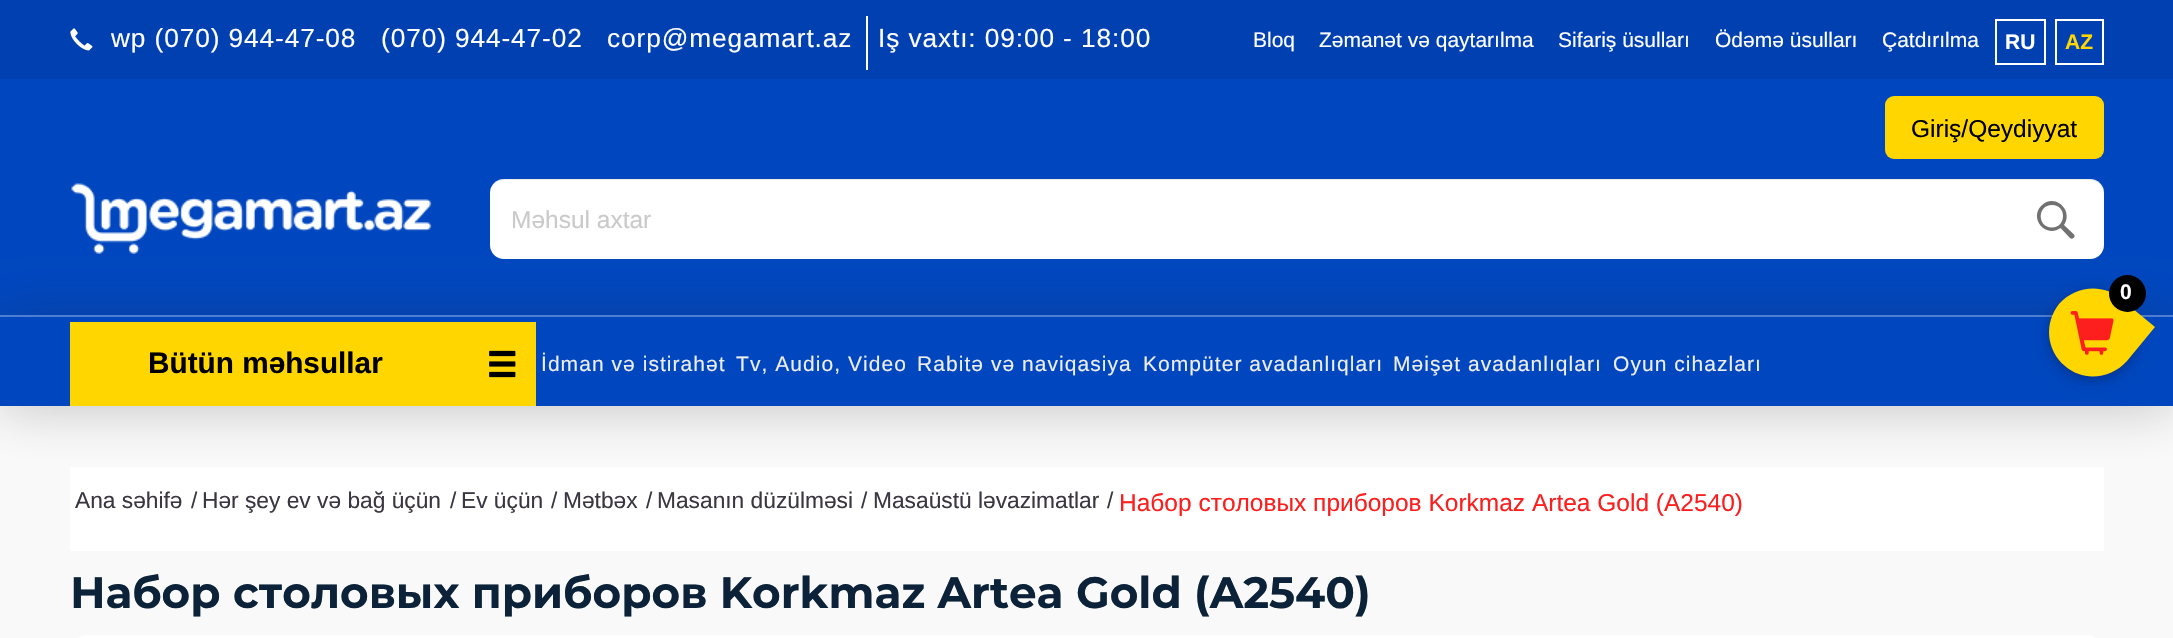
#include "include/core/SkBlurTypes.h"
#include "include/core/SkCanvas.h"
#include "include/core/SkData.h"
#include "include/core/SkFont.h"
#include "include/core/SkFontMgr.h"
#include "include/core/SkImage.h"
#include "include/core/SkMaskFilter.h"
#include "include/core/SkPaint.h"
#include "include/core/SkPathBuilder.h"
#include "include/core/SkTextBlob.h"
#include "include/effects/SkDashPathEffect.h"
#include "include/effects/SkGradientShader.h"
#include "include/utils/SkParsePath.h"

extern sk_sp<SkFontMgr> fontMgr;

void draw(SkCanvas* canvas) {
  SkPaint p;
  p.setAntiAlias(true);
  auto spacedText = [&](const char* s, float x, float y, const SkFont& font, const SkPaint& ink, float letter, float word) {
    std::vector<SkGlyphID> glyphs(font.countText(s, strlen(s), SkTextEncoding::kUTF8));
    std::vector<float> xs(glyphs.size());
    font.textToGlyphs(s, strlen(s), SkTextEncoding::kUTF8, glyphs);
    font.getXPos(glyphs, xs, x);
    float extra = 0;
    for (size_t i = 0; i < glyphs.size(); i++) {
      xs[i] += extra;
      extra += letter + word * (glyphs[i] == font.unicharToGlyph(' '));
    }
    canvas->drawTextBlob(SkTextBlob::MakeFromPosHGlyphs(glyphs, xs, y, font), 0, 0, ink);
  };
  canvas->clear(SkColorSetRGB(249, 249, 249));
  p.setColor(SkColorSetRGB(0, 64, 177));
  canvas->drawRect(SkRect::MakeLTRB(0, 0, 2173, 79), p);
  canvas->drawImageRect(SkImages::DeferredFromEncodedData(SkData::MakeFromFileName("images/1.png")), SkRect::MakeLTRB(70, 28, 93, 51), SkSamplingOptions());
  p.setColor(SK_ColorWHITE);
  canvas->drawRect(SkRect::MakeLTRB(866, 16, 868, 70), p);
  p.setStyle(SkPaint::kStroke_Style);
  p.setStrokeWidth(2);
  canvas->drawRect(SkRect::MakeLTRB(1996, 20, 2045, 64), p);
  canvas->drawRect(SkRect::MakeLTRB(2056, 20, 2103, 64), p);
  p.setStyle(SkPaint::kFill_Style);
  p.setColor(SkColorSetRGB(0, 70, 190));
  canvas->drawRect(SkRect::MakeLTRB(0, 79, 2173, 315), p);
  p.setColor(SkColorSetRGB(255, 214, 0));
  canvas->drawRoundRect(SkRect::MakeLTRB(1885, 96, 2104, 159), 9, 9, p);
  p.setColor(SK_ColorWHITE);
  canvas->drawRoundRect(SkRect::MakeLTRB(490, 179, 2104, 259), 14, 14, p);
  canvas->drawRect(SkRect::MakeLTRB(70, 467, 2104, 551), p);
  p.setColor(SkColorSetARGB(64, 43, 43, 43));
  p.setMaskFilter(SkMaskFilter::MakeBlur(kNormal_SkBlurStyle, 26));
  canvas->drawRect(SkRect::MakeLTRB(0, 319, 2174, 410), p);
  p.setMaskFilter(nullptr);
  canvas->drawImageRect(SkImages::DeferredFromEncodedData(SkData::MakeFromFileName("images/2.png")), SkRect::MakeLTRB(71, 183, 432, 254), SkSamplingOptions());
  p.setColor(SkColorSetARGB(18, 0, 0, 0));
  canvas->drawPath(SkPathBuilder().moveTo(504, 180).lineTo(2090, 180).cubicTo(2097, 180, 2104, 187, 2104, 194).cubicTo(2104, 186, 2098, 179, 2090, 179).lineTo(504, 179).cubicTo(496, 179, 490, 186, 490, 194).cubicTo(490, 187, 496, 180, 504, 180).close().detach(), p);
  p.setColor(SkColorSetRGB(113, 113, 113));
  canvas->drawPath(SkPathBuilder().moveTo(2074, 234.5f).cubicTo(2076, 237, 2072.5f, 240, 2070, 238).lineTo(2060.5f, 228).cubicTo(2046, 238.5f, 2028.5f, 218.5f, 2041.5f, 205.5f).cubicTo(2054.5f, 192.5f, 2074, 210, 2064, 225).close().moveTo(2052, 227.5f).cubicTo(2066.5f, 227.5f, 2067, 205, 2052, 205).cubicTo(2037, 205, 2037, 227.5f, 2052, 227.5f).close().detach(), p);
  p.setColor(SkColorSetRGB(0, 70, 190));
  canvas->drawRect(SkRect::MakeLTRB(0, 317, 2173, 406), p);
  p.setColor(SkColorSetRGB(77, 126, 210));
  canvas->drawRect(SkRect::MakeLTRB(0, 315, 2173, 317), p);
  p.setColor(SkColorSetRGB(255, 214, 0));
  canvas->drawRect(SkRect::MakeLTRB(70, 322, 536, 406), p);
  canvas->drawImageRect(SkImages::DeferredFromEncodedData(SkData::MakeFromFileName("images/3.png")), SkRect::MakeLTRB(489, 350, 516, 378), SkSamplingOptions());
  p.setColor(SK_ColorWHITE);
  canvas->drawPath(SkPathBuilder().moveTo(88, 635).lineTo(2086, 635).cubicTo(2096, 635, 2104, 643, 2104, 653).lineTo(2104, 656).lineTo(70, 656).lineTo(70, 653).cubicTo(70, 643, 78, 635, 88, 635).close().detach(), p);
  p.setColor(SkColorSetARGB(31, 0, 0, 0));
  p.setMaskFilter(SkMaskFilter::MakeBlur(kNormal_SkBlurStyle, 8.5f));
  canvas->drawRoundRect(SkRect::MakeLTRB(2049, 292, 2137, 380), 44, 44, p);
  p.setMaskFilter(nullptr);
  p.setColor(SkColorSetARGB(41, 0, 0, 0));
  p.setMaskFilter(SkMaskFilter::MakeBlur(kNormal_SkBlurStyle, 4.5f));
  canvas->drawRoundRect(SkRect::MakeLTRB(2049, 292, 2137, 380), 44, 44, p);
  p.setMaskFilter(nullptr);
  p.setColor(SkColorSetRGB(255, 214, 0));
  canvas->drawPath(SkPathBuilder().moveTo(2121, 299).lineTo(2155, 327).lineTo(2127, 361).cubicTo(2111, 379, 2083, 382, 2065, 366).cubicTo(2046, 350, 2044, 323, 2059, 304).cubicTo(2075, 286, 2103, 283, 2121, 299).close().detach(), p);
  canvas->drawImageRect(SkImages::DeferredFromEncodedData(SkData::MakeFromFileName("images/4.png")), SkRect::MakeLTRB(2070, 311, 2114, 355), SkSamplingOptions());
  p.setColor(SK_ColorBLACK);
  canvas->drawCircle(2127.5f, 293.5f, 18.5f, p);
  SkFont font1(fontMgr->matchFamilyStyle("Liberation Sans", SkFontStyle::Normal()), 26.25f);
  font1.setSubpixel(true);
  p.setColor(SK_ColorWHITE);
  spacedText("wp (070) 944-47-08", 111, 47, font1, p, 0.9f, 0);
  spacedText("(070) 944-47-02", 381, 47, font1, p, 0.9f, 0);
  spacedText("corp@megamart.az", 607, 47, font1, p, 0.9f, 0);
  spacedText("Iş vaxtı: 09:00 - 18:00", 878, 47, font1, p, 0.9f, 0);
  SkFont font2(fontMgr->matchFamilyStyle("Liberation Sans", SkFontStyle::Normal()), 21);
  font2.setSubpixel(true);
  canvas->drawString("Bloq", 1253, 47, font2, p);
  canvas->drawString("Zəmanət və qaytarılma", 1319, 47, font2, p);
  canvas->drawString("Sifariş üsulları", 1558, 47, font2, p);
  canvas->drawString("Ödəmə üsulları", 1715, 47, font2, p);
  canvas->drawString("Çatdırılma", 1882, 47, font2, p);
  SkFont font3(fontMgr->matchFamilyStyle("Liberation Sans", SkFontStyle::Bold()), 21);
  font3.setSubpixel(true);
  canvas->drawString("RU", 2005, 49, font3, p);
  p.setColor(SkColorSetRGB(255, 214, 0));
  canvas->drawString("AZ", 2065, 49, font3, p);
  SkFont font4(fontMgr->matchFamilyStyle("Liberation Sans", SkFontStyle::Normal()), 24.5f);
  font4.setSubpixel(true);
  p.setColor(SK_ColorBLACK);
  canvas->drawString("Giriş/Qeydiyyat", 1911, 137, font4, p);
  p.setColor(SkColorSetRGB(202, 202, 202));
  canvas->drawString("Məhsul axtar", 511, 228, font4, p);
  SkFont font5(fontMgr->matchFamilyStyle("Liberation Sans", SkFontStyle::Bold()), 29.75f);
  font5.setSubpixel(true);
  p.setColor(SK_ColorBLACK);
  canvas->drawString("Bütün məhsullar", 148, 373, font5, p);
  p.setColor(SkColorSetRGB(238, 238, 238));
  spacedText("İdman və istirahət", 541, 371, font2, p, 1.05f, 0);
  spacedText("Tv, Audio, Video", 736, 371, font2, p, 1.05f, 0);
  spacedText("Rabitə və naviqasiya", 917, 371, font2, p, 1.05f, 0);
  spacedText("Kompüter avadanlıqları", 1143, 371, font2, p, 1.05f, 0);
  spacedText("Məişət avadanlıqları", 1393, 371, font2, p, 1.05f, 0);
  spacedText("Oyun cihazları", 1613, 371, font2, p, 1.05f, 0);
  SkFont font6(fontMgr->matchFamilyStyle("Liberation Sans", SkFontStyle::Normal()), 22.75f);
  font6.setSubpixel(true);
  p.setColor(SkColorSetRGB(59, 55, 66));
  canvas->drawString("Ana səhifə", 75, 508, font6, p);
  canvas->drawString("/", 191, 508, font6, p);
  canvas->drawString("Hər şey ev və bağ üçün", 202, 508, font6, p);
  canvas->drawString("/", 450, 508, font6, p);
  canvas->drawString("Ev üçün", 461, 508, font6, p);
  canvas->drawString("/", 551, 508, font6, p);
  canvas->drawString("Mətbəx", 563, 508, font6, p);
  canvas->drawString("/", 646, 508, font6, p);
  canvas->drawString("Masanın düzülməsi", 657, 508, font6, p);
  canvas->drawString("/", 861, 508, font6, p);
  canvas->drawString("Masaüstü ləvazimatlar", 873, 508, font6, p);
  canvas->drawString("/", 1107, 508, font6, p);
  p.setColor(SkColorSetRGB(253, 30, 30));
  canvas->drawString("Набор столовых приборов Korkmaz Artea Gold (A2540)", 1119, 511, font4, p);
  SkFont font7(fontMgr->matchFamilyStyle("Montserrat", SkFontStyle::Bold()), 43.75f);
  font7.setSubpixel(true);
  p.setColor(SkColorSetRGB(11, 34, 56));
  canvas->drawString("Набор столовых приборов Korkmaz Artea Gold (A2540)", 70, 608, font7, p);
  p.setColor(SK_ColorWHITE);
  canvas->drawString("0", 2120, 299, font3, p);
}
